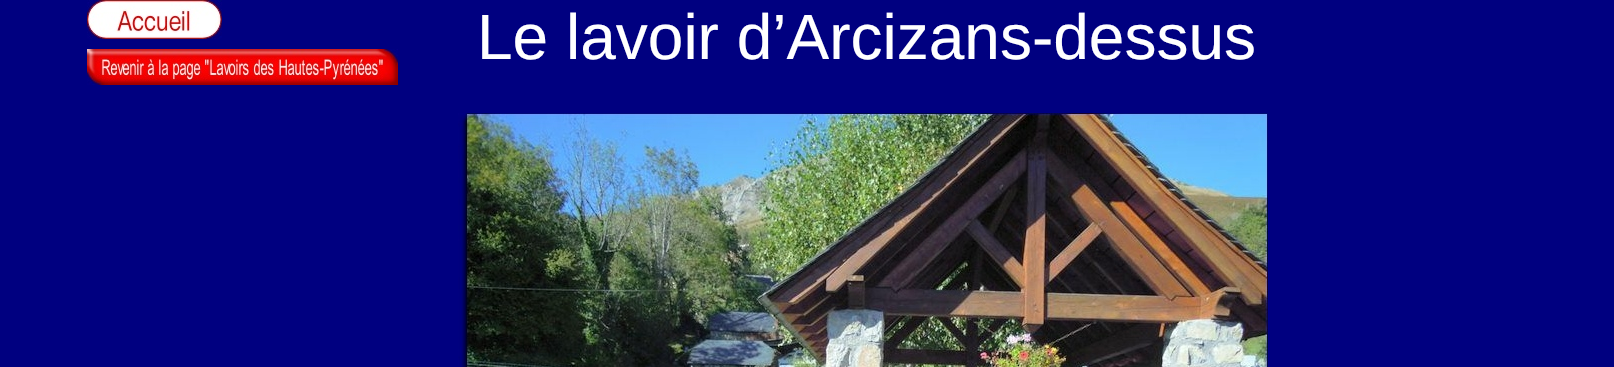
#include "include/core/SkBlurTypes.h"
#include "include/core/SkCanvas.h"
#include "include/core/SkData.h"
#include "include/core/SkFont.h"
#include "include/core/SkFontMgr.h"
#include "include/core/SkImage.h"
#include "include/core/SkMaskFilter.h"
#include "include/core/SkPaint.h"
#include "include/core/SkPathBuilder.h"
#include "include/core/SkTextBlob.h"
#include "include/effects/SkDashPathEffect.h"
#include "include/effects/SkGradientShader.h"
#include "include/utils/SkParsePath.h"

extern sk_sp<SkFontMgr> fontMgr;

void draw(SkCanvas* canvas) {
  SkPaint p;
  p.setAntiAlias(true);
  canvas->clear(SkColorSetRGB(0, 0, 128));
  canvas->drawImageRect(SkImages::DeferredFromEncodedData(SkData::MakeFromFileName("images/1.png")), SkRect::MakeLTRB(87, 0, 222, 39), SkSamplingOptions());
  canvas->drawImageRect(SkImages::DeferredFromEncodedData(SkData::MakeFromFileName("images/2.png")), SkRect::MakeLTRB(87, 49, 398, 85), SkSamplingOptions());
  canvas->drawImageRect(SkImages::DeferredFromEncodedData(SkData::MakeFromFileName("images/3.png")), SkRect::MakeLTRB(458, 113, 1268, 367), SkSamplingOptions());
  SkFont font1(fontMgr->matchFamilyStyle("Liberation Sans", SkFontStyle::Normal()), 64);
  font1.setSubpixel(true);
  p.setColor(SK_ColorWHITE);
  canvas->drawString("Le lavoir d’Arcizans-dessus", 477, 59, font1, p);
}
